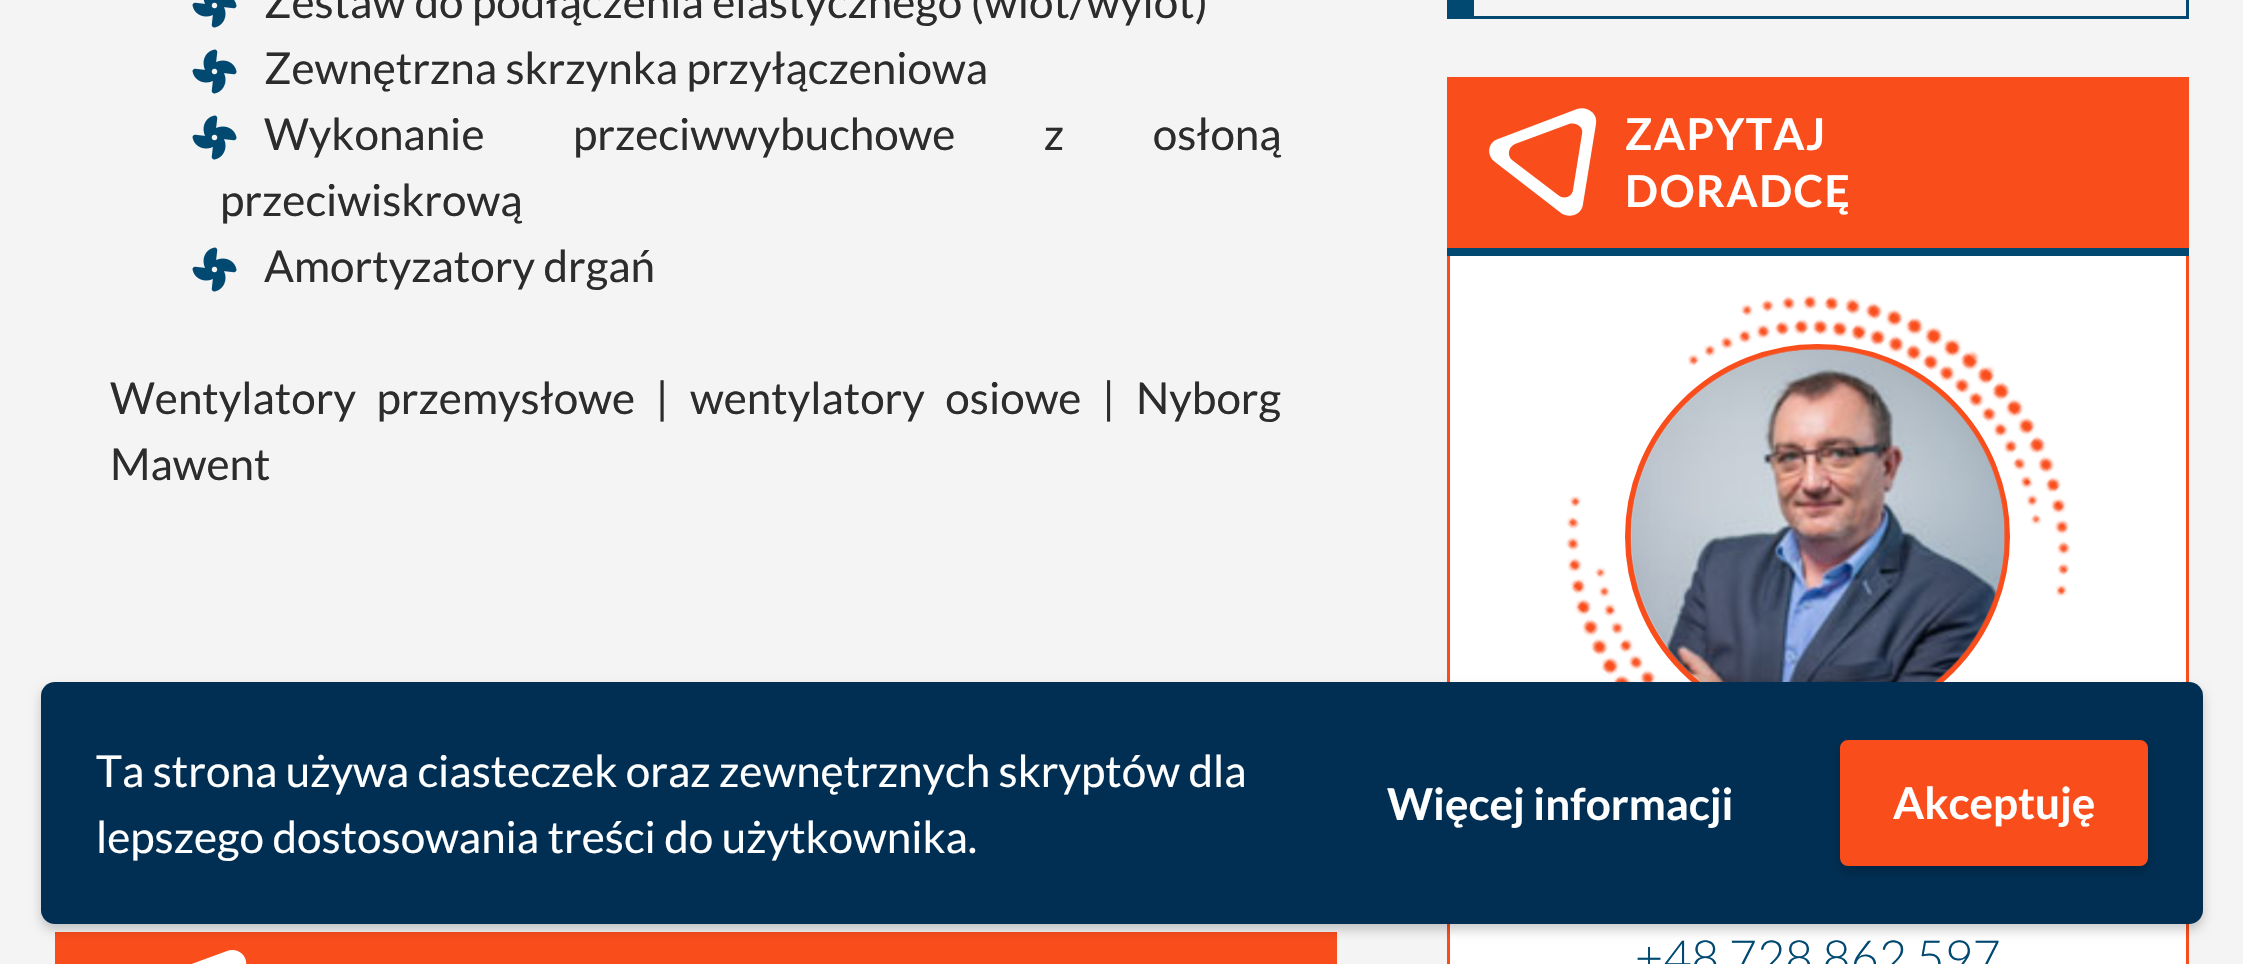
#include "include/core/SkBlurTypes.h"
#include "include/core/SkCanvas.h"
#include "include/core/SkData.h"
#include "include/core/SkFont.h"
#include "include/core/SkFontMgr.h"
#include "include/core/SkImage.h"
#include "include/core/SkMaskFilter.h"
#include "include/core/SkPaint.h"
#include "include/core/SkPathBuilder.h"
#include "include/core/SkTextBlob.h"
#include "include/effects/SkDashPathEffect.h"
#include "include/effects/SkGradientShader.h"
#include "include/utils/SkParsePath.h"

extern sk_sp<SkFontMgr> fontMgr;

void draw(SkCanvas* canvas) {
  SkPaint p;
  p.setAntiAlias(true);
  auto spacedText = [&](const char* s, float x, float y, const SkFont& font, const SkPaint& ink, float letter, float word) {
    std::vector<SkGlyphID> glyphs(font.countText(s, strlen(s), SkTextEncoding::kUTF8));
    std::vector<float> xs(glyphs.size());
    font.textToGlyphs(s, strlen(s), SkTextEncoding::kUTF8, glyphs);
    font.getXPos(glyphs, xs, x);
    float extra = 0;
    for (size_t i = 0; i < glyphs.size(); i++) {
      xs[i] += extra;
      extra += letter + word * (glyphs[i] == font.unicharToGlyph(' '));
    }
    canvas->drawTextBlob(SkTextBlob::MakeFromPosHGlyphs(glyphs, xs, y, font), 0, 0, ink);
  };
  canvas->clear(SkColorSetRGB(244, 244, 244));
  canvas->drawImageRect(SkImages::DeferredFromEncodedData(SkData::MakeFromFileName("images/1.png")), SkRect::MakeLTRB(192, 0, 237, 28), SkSamplingOptions());
  canvas->drawImageRect(SkImages::DeferredFromEncodedData(SkData::MakeFromFileName("images/2.png")), SkRect::MakeLTRB(192, 49, 237, 94), SkSamplingOptions());
  canvas->drawImageRect(SkImages::DeferredFromEncodedData(SkData::MakeFromFileName("images/2.png")), SkRect::MakeLTRB(192, 115, 237, 160), SkSamplingOptions());
  canvas->drawImageRect(SkImages::DeferredFromEncodedData(SkData::MakeFromFileName("images/2.png")), SkRect::MakeLTRB(192, 247, 237, 292), SkSamplingOptions());
  p.setColor(SkColorSetRGB(249, 77, 28));
  canvas->drawRect(SkRect::MakeLTRB(55, 932, 1337, 964), p);
  p.setColor(SK_ColorWHITE);
  canvas->drawPath(SkPathBuilder().moveTo(227, 951).cubicTo(237, 947, 248, 955, 246, 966).lineTo(233, 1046).cubicTo(231, 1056, 219, 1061, 210, 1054).lineTo(144, 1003).cubicTo(136, 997, 138, 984, 148, 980).close().detach(), p);
  p.setStyle(SkPaint::kStroke_Style);
  p.setStrokeWidth(3);
  p.setColor(SkColorSetRGB(1, 73, 113));
  canvas->drawRect(SkRect::MakeLTRB(1448.5f, -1.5f, 2187.5f, 17.5f), p);
  p.setStyle(SkPaint::kFill_Style);
  canvas->drawRect(SkRect::MakeLTRB(1450, 0, 1474, 16), p);
  p.setColor(SkColorSetRGB(249, 77, 28));
  canvas->drawRect(SkRect::MakeLTRB(1447, 77, 2189, 248), p);
  p.setColor(SkColorSetRGB(1, 73, 113));
  canvas->drawRect(SkRect::MakeLTRB(1447, 248, 2189, 256), p);
  p.setColor(SK_ColorWHITE);
  canvas->drawPath(SkPathBuilder().moveTo(1577, 109).cubicTo(1588, 106, 1598, 114, 1596, 124).lineTo(1583, 204).cubicTo(1582, 215, 1569, 219, 1561, 213).lineTo(1495, 162).cubicTo(1486, 155, 1488, 142, 1498, 139).close().detach(), p);
  p.setColor(SkColorSetRGB(249, 77, 28));
  canvas->drawPath(SkPathBuilder().moveTo(1569, 124).cubicTo(1576, 122, 1584, 127, 1582, 134).lineTo(1573, 190).cubicTo(1572, 197, 1564, 200, 1558, 195).lineTo(1512, 160).cubicTo(1507, 156, 1508, 147, 1515, 144).close().detach(), p);
  p.setColor(SK_ColorWHITE);
  canvas->drawRect(SkRect::MakeLTRB(1450, 256, 2186, 964), p);
  p.setColor(SkColorSetRGB(249, 77, 28));
  canvas->drawRect(SkRect::MakeLTRB(2186, 256, 2189, 964), p);
  canvas->drawRect(SkRect::MakeLTRB(1447, 256, 1450, 964), p);
  p.setStyle(SkPaint::kStroke_Style);
  p.setStrokeWidth(6);
  canvas->drawCircle(1817.5f, 536.5f, 189.5f, p);
  canvas->drawImageRect(SkImages::DeferredFromEncodedData(SkData::MakeFromFileName("images/4.png")), SkRect::MakeLTRB(1630, 348, 2006, 682), SkSamplingOptions());
  canvas->drawImageRect(SkImages::DeferredFromEncodedData(SkData::MakeFromFileName("images/3.png")), SkRect::MakeLTRB(1565, 295, 2071, 682), SkSamplingOptions());
  p.setStyle(SkPaint::kFill_Style);
  p.setColor(SkColorSetARGB(51, 0, 0, 0));
  p.setMaskFilter(SkMaskFilter::MakeBlur(kNormal_SkBlurStyle, 5.5f));
  canvas->drawRoundRect(SkRect::MakeLTRB(41, 688, 2203, 930), 14, 14, p);
  p.setMaskFilter(nullptr);
  p.setColor(SkColorSetRGB(1, 47, 83));
  canvas->drawRoundRect(SkRect::MakeLTRB(41, 682, 2203, 924), 14, 14, p);
  p.setColor(SkColorSetARGB(51, 0, 0, 0));
  p.setMaskFilter(SkMaskFilter::MakeBlur(kNormal_SkBlurStyle, 5.5f));
  canvas->drawRoundRect(SkRect::MakeLTRB(1840, 745, 2148, 872), 8, 8, p);
  p.setMaskFilter(nullptr);
  p.setColor(SkColorSetRGB(249, 77, 28));
  canvas->drawRoundRect(SkRect::MakeLTRB(1841.5f, 741.5f, 2146.5f, 864.5f), 6.5f, 6.5f, p);
  p.setStyle(SkPaint::kStroke_Style);
  p.setStrokeWidth(3);
  canvas->drawRoundRect(SkRect::MakeLTRB(1841.5f, 741.5f, 2146.5f, 864.5f), 6.5f, 6.5f, p);
  SkFont font1(fontMgr->matchFamilyStyle("Lato", SkFontStyle::Normal()), 44);
  font1.setSubpixel(true);
  p.setStyle(SkPaint::kFill_Style);
  p.setColor(SkColorSetRGB(44, 44, 44));
  canvas->drawString("Zestaw do podłączenia elastycznego (wlot/wylot)", 264, 18, font1, p);
  canvas->drawString("Zewnętrzna skrzynka przyłączeniowa", 264, 84, font1, p);
  spacedText("Wykonanie przeciwwybuchowe z osłoną", 264, 150, font1, p, 0, 80);
  canvas->drawString("przeciwiskrową", 220, 216, font1, p);
  canvas->drawString("Amortyzatory drgań", 264, 282, font1, p);
  spacedText("Wentylatory przemysłowe |", 110, 414, font1, p, 0, 12);
  spacedText("wentylatory osiowe", 690, 414, font1, p, 0, 12);
  canvas->drawString("|", 1102, 414, font1, p);
  canvas->drawString("Nyborg", 1136, 414, font1, p);
  canvas->drawString("Mawent", 110, 480, font1, p);
  SkFont font2(fontMgr->matchFamilyStyle("Lato", SkFontStyle::Bold()), 44);
  font2.setSubpixel(true);
  p.setColor(SK_ColorWHITE);
  spacedText("ZAPYTAJ", 1625, 150, font2, p, 1.5f, 0);
  spacedText("DORADCĘ", 1625, 207, font2, p, 1.5f, 0);
  SkFont font3(fontMgr->matchFamilyStyle("Lato", SkFontStyle(300, SkFontStyle::kNormal_Width, SkFontStyle::kUpright_Slant)), 48.5f);
  font3.setSubpixel(true);
  p.setColor(SkColorSetRGB(1, 73, 113));
  canvas->drawString("+48 728 862 597", 1635, 975, font3, p);
  p.setColor(SK_ColorWHITE);
  canvas->drawString("Ta strona używa ciasteczek oraz zewnętrznych skryptów dla", 96, 787, font1, p);
  canvas->drawString("lepszego dostosowania treści do użytkownika.", 96, 853, font1, p);
  canvas->drawString("Więcej informacji", 1387, 820, font2, p);
  canvas->drawString("Akceptuję", 1893, 819, font2, p);
}
